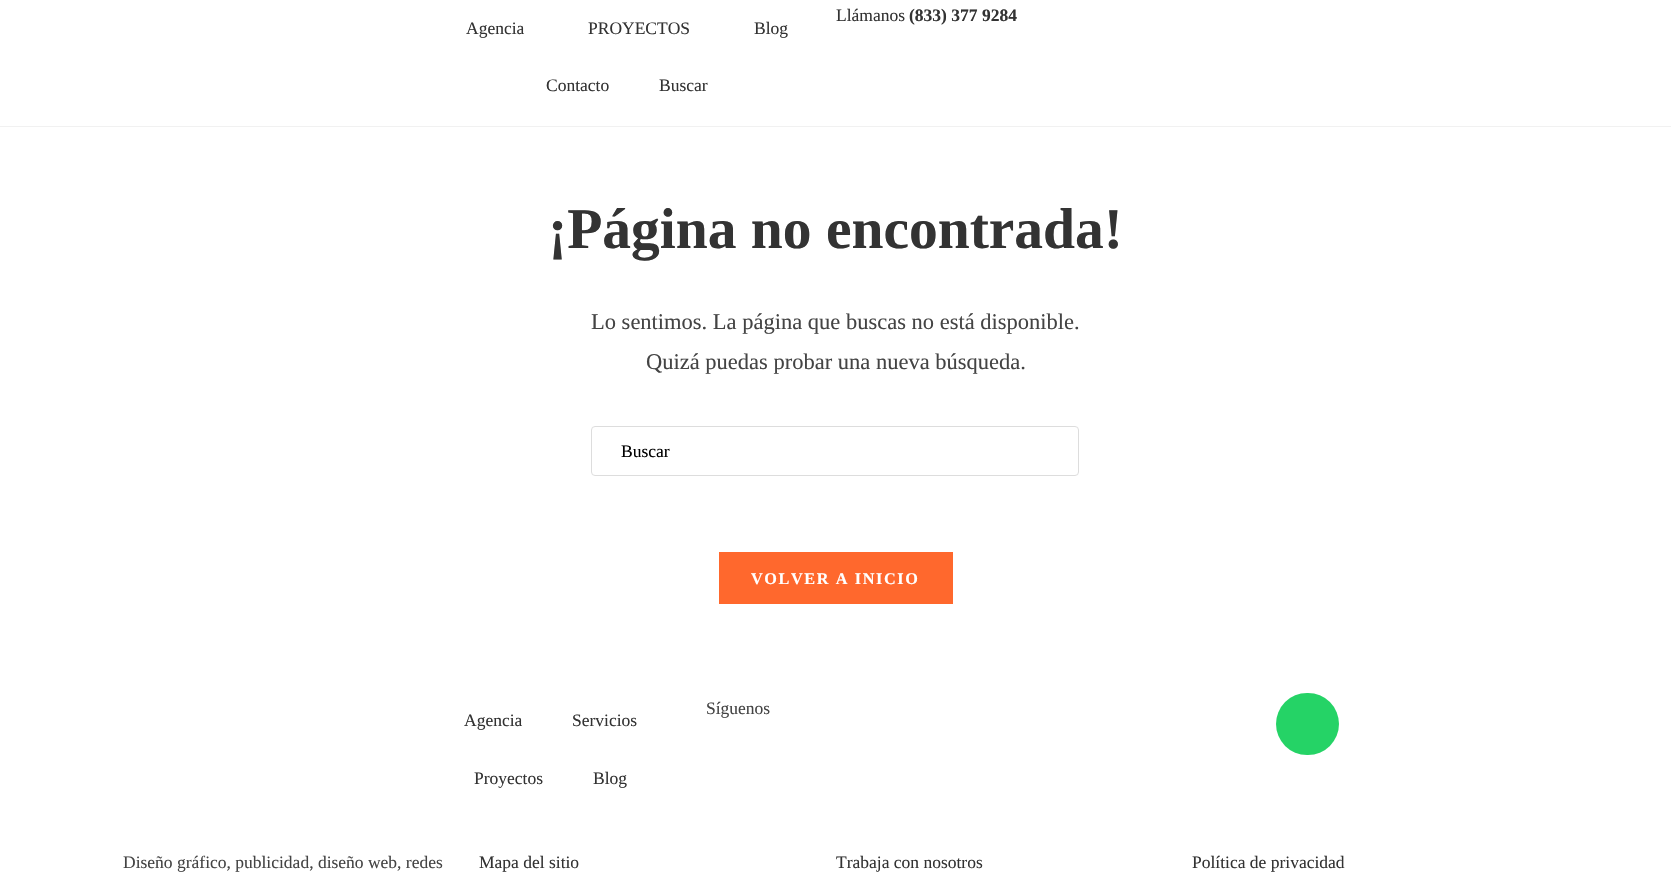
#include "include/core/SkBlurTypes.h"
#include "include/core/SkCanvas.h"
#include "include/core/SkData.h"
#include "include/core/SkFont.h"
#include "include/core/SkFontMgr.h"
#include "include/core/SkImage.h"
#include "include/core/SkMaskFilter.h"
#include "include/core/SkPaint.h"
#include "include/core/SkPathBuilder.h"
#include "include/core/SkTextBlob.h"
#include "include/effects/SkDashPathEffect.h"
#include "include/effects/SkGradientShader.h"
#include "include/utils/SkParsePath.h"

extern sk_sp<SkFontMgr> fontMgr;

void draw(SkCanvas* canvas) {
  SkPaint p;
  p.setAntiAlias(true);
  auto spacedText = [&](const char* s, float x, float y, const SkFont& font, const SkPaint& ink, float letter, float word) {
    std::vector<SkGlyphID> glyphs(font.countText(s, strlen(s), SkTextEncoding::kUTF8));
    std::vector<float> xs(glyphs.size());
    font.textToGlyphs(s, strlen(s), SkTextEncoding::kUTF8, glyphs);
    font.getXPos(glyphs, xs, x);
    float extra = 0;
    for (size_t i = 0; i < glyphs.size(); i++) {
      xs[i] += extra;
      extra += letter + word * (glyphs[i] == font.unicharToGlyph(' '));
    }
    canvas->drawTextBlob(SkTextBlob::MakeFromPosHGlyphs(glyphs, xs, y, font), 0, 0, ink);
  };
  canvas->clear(SK_ColorWHITE);
  p.setColor(SkColorSetRGB(241, 241, 241));
  canvas->drawRect(SkRect::MakeLTRB(0, 126, 1671, 127), p);
  p.setStyle(SkPaint::kStroke_Style);
  p.setStrokeWidth(1);
  p.setColor(SkColorSetRGB(221, 221, 221));
  canvas->drawRoundRect(SkRect::MakeLTRB(591.5f, 426.5f, 1078.5f, 475.5f), 3.5f, 3.5f, p);
  p.setStyle(SkPaint::kFill_Style);
  p.setColor(SkColorSetRGB(255, 104, 45));
  canvas->drawRect(SkRect::MakeLTRB(719, 552, 953, 604), p);
  p.setColor(SkColorSetRGB(37, 211, 102));
  canvas->drawRoundRect(SkRect::MakeLTRB(1276, 693, 1339, 755), 31, 31, p);
  SkFont font1(fontMgr->matchFamilyStyle("Liberation Serif", SkFontStyle::Normal()), 17.5f);
  font1.setSubpixel(true);
  p.setColor(SkColorSetRGB(51, 51, 51));
  canvas->drawString("Llámanos", 836, 21, font1, p);
  SkFont font2(fontMgr->matchFamilyStyle("Liberation Serif", SkFontStyle::Bold()), 17.5f);
  font2.setSubpixel(true);
  canvas->drawString("(833) 377 9284", 909, 21, font2, p);
  canvas->drawString("Agencia", 466, 34, font1, p);
  canvas->drawString("PROYECTOS", 588, 34, font1, p);
  canvas->drawString("Blog", 754, 34, font1, p);
  canvas->drawString("Contacto", 546, 91, font1, p);
  canvas->drawString("Buscar", 659, 91, font1, p);
  SkFont font3(fontMgr->matchFamilyStyle("Liberation Serif", SkFontStyle::Bold()), 57.5f);
  font3.setSubpixel(true);
  canvas->drawString("¡Página no encontrada!", 548, 248, font3, p);
  SkFont font4(fontMgr->matchFamilyStyle("Liberation Serif", SkFontStyle::Normal()), 22.5f);
  font4.setSubpixel(true);
  p.setColor(SkColorSetRGB(68, 68, 68));
  canvas->drawString("Lo sentimos. La página que buscas no está disponible.", 591, 329, font4, p);
  canvas->drawString("Quizá puedas probar una nueva búsqueda.", 646, 369, font4, p);
  p.setColor(SK_ColorBLACK);
  canvas->drawString("Buscar", 621, 457, font1, p);
  SkFont font5(fontMgr->matchFamilyStyle("Liberation Serif", SkFontStyle::Bold()), 16.25f);
  font5.setSubpixel(true);
  p.setColor(SK_ColorWHITE);
  spacedText("VOLVER A INICIO", 751, 584, font5, p, 1.6f, 0);
  p.setColor(SkColorSetRGB(68, 68, 68));
  canvas->drawString("Síguenos", 706, 714, font1, p);
  p.setColor(SkColorSetRGB(51, 51, 51));
  canvas->drawString("Agencia", 464, 726, font1, p);
  canvas->drawString("Servicios", 572, 726, font1, p);
  canvas->drawString("Proyectos", 474, 784, font1, p);
  canvas->drawString("Blog", 593, 784, font1, p);
  p.setColor(SkColorSetRGB(68, 68, 68));
  canvas->drawString("Diseño gráfico, publicidad, diseño web, redes", 123, 868, font1, p);
  p.setColor(SkColorSetRGB(51, 51, 51));
  canvas->drawString("Mapa del sitio", 479, 868, font1, p);
  canvas->drawString("Trabaja con nosotros", 836, 868, font1, p);
  canvas->drawString("Política de privacidad", 1192, 868, font1, p);
}
